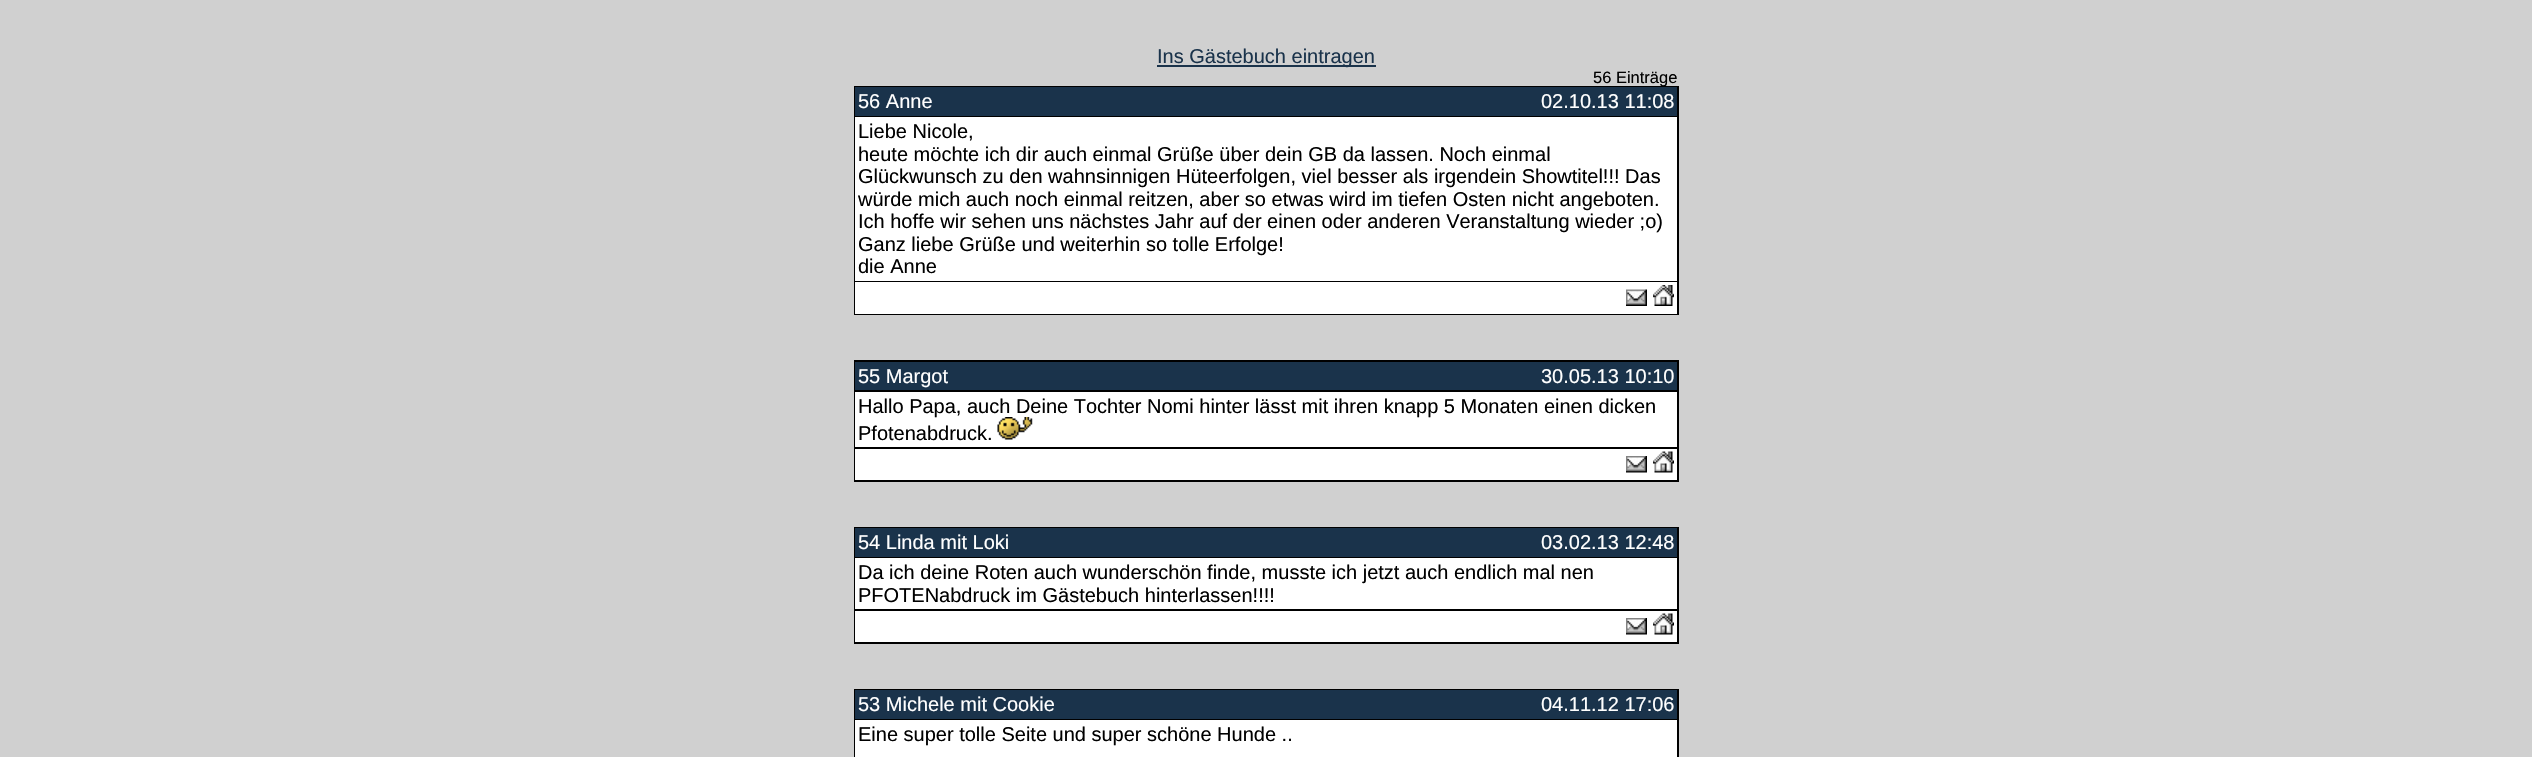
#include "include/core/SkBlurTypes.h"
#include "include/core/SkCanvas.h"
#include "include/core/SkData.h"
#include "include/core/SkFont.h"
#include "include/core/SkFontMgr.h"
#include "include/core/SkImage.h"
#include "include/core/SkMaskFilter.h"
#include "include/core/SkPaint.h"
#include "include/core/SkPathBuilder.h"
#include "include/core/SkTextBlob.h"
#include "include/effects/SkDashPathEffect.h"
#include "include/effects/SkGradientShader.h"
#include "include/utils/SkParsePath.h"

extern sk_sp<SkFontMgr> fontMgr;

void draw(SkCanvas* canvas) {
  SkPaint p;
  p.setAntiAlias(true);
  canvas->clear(SkColorSetRGB(208, 208, 208));
  p.setColor(SkColorSetRGB(26, 51, 75));
  canvas->drawRect(SkRect::MakeLTRB(1157, 65, 1376, 67), p);
  p.setColor(SK_ColorBLACK);
  canvas->drawRect(SkRect::MakeLTRB(854, 86, 1679, 315), p);
  p.setColor(SkColorSetRGB(26, 51, 75));
  canvas->drawRect(SkRect::MakeLTRB(855, 87, 1677, 116), p);
  p.setColor(SK_ColorWHITE);
  canvas->drawRect(SkRect::MakeLTRB(855, 117, 1677, 281), p);
  canvas->drawRect(SkRect::MakeLTRB(855, 282, 1677, 314), p);
  canvas->drawImageRect(SkImages::DeferredFromEncodedData(SkData::MakeFromFileName("images/1.png")), SkRect::MakeLTRB(1626, 289, 1647, 306), SkSamplingOptions());
  canvas->drawImageRect(SkImages::DeferredFromEncodedData(SkData::MakeFromFileName("images/2.png")), SkRect::MakeLTRB(1653, 285, 1674, 306), SkSamplingOptions());
  p.setColor(SK_ColorBLACK);
  canvas->drawRect(SkRect::MakeLTRB(854, 360, 1679, 482), p);
  p.setColor(SkColorSetRGB(26, 51, 75));
  canvas->drawRect(SkRect::MakeLTRB(855, 362, 1677, 390), p);
  p.setColor(SK_ColorWHITE);
  canvas->drawRect(SkRect::MakeLTRB(855, 392, 1677, 447), p);
  canvas->drawRect(SkRect::MakeLTRB(855, 449, 1677, 480), p);
  canvas->drawImageRect(SkImages::DeferredFromEncodedData(SkData::MakeFromFileName("images/4.png")), SkRect::MakeLTRB(1626, 456, 1647, 473), SkSamplingOptions());
  canvas->drawImageRect(SkImages::DeferredFromEncodedData(SkData::MakeFromFileName("images/5.png")), SkRect::MakeLTRB(1653, 451, 1674, 473), SkSamplingOptions());
  p.setColor(SK_ColorBLACK);
  canvas->drawRect(SkRect::MakeLTRB(854, 527, 1679, 644), p);
  p.setColor(SkColorSetRGB(26, 51, 75));
  canvas->drawRect(SkRect::MakeLTRB(855, 528, 1677, 557), p);
  p.setColor(SK_ColorWHITE);
  canvas->drawRect(SkRect::MakeLTRB(855, 558, 1677, 609), p);
  canvas->drawRect(SkRect::MakeLTRB(855, 611, 1677, 642), p);
  canvas->drawImageRect(SkImages::DeferredFromEncodedData(SkData::MakeFromFileName("images/4.png")), SkRect::MakeLTRB(1626, 618, 1647, 635), SkSamplingOptions());
  canvas->drawImageRect(SkImages::DeferredFromEncodedData(SkData::MakeFromFileName("images/5.png")), SkRect::MakeLTRB(1653, 613, 1674, 635), SkSamplingOptions());
  p.setColor(SK_ColorBLACK);
  canvas->drawRect(SkRect::MakeLTRB(854, 689, 1679, 757), p);
  p.setColor(SkColorSetRGB(26, 51, 75));
  canvas->drawRect(SkRect::MakeLTRB(855, 690, 1677, 719), p);
  p.setColor(SK_ColorWHITE);
  canvas->drawRect(SkRect::MakeLTRB(855, 720, 1677, 757), p);
  SkFont font1(fontMgr->matchFamilyStyle("Liberation Sans", SkFontStyle::Normal()), 20);
  font1.setSubpixel(true);
  p.setColor(SkColorSetRGB(26, 51, 75));
  canvas->drawString("Ins Gästebuch eintragen", 1157, 63, font1, p);
  SkFont font2(fontMgr->matchFamilyStyle("Liberation Sans", SkFontStyle::Normal()), 16.5f);
  font2.setSubpixel(true);
  p.setColor(SK_ColorBLACK);
  canvas->drawString("56 Einträge", 1593, 83, font2, p);
  p.setColor(SK_ColorWHITE);
  canvas->drawString("56 Anne", 858, 108, font1, p);
  canvas->drawString("02.10.13 11:08", 1541, 108, font1, p);
  p.setColor(SK_ColorBLACK);
  canvas->drawString("Liebe Nicole,", 858, 138, font1, p);
  canvas->drawString("heute möchte ich dir auch einmal Grüße über dein GB da lassen. Noch einmal", 858, 161, font1, p);
  canvas->drawString("Glückwunsch zu den wahnsinnigen Hüteerfolgen, viel besser als irgendein Showtitel!!! Das", 858, 183, font1, p);
  canvas->drawString("würde mich auch noch einmal reitzen, aber so etwas wird im tiefen Osten nicht angeboten.", 858, 206, font1, p);
  canvas->drawString("Ich hoffe wir sehen uns nächstes Jahr auf der einen oder anderen Veranstaltung wieder ;o)", 858, 228, font1, p);
  canvas->drawString("Ganz liebe Grüße und weiterhin so tolle Erfolge!", 858, 251, font1, p);
  canvas->drawString("die Anne", 858, 273, font1, p);
  p.setColor(SK_ColorWHITE);
  canvas->drawString("55 Margot", 858, 383, font1, p);
  canvas->drawString("30.05.13 10:10", 1541, 383, font1, p);
  p.setColor(SK_ColorBLACK);
  canvas->drawString("Hallo Papa, auch Deine Tochter Nomi hinter lässt mit ihren knapp 5 Monaten einen dicken", 858, 413, font1, p);
  canvas->drawString("Pfotenabdruck.", 858, 440, font1, p);
  canvas->drawImageRect(SkImages::DeferredFromEncodedData(SkData::MakeFromFileName("images/3.png")), SkRect::MakeLTRB(997, 417, 1033, 440), SkSamplingOptions());
  p.setColor(SK_ColorWHITE);
  canvas->drawString("54 Linda mit Loki", 858, 549, font1, p);
  canvas->drawString("03.02.13 12:48", 1541, 549, font1, p);
  p.setColor(SK_ColorBLACK);
  canvas->drawString("Da ich deine Roten auch wunderschön finde, musste ich jetzt auch endlich mal nen", 858, 579, font1, p);
  canvas->drawString("PFOTENabdruck im Gästebuch hinterlassen!!!!", 858, 602, font1, p);
  p.setColor(SK_ColorWHITE);
  canvas->drawString("53 Michele mit Cookie", 858, 711, font1, p);
  canvas->drawString("04.11.12 17:06", 1541, 711, font1, p);
  p.setColor(SK_ColorBLACK);
  canvas->drawString("Eine super tolle Seite und super schöne Hunde ..", 858, 741, font1, p);
}
